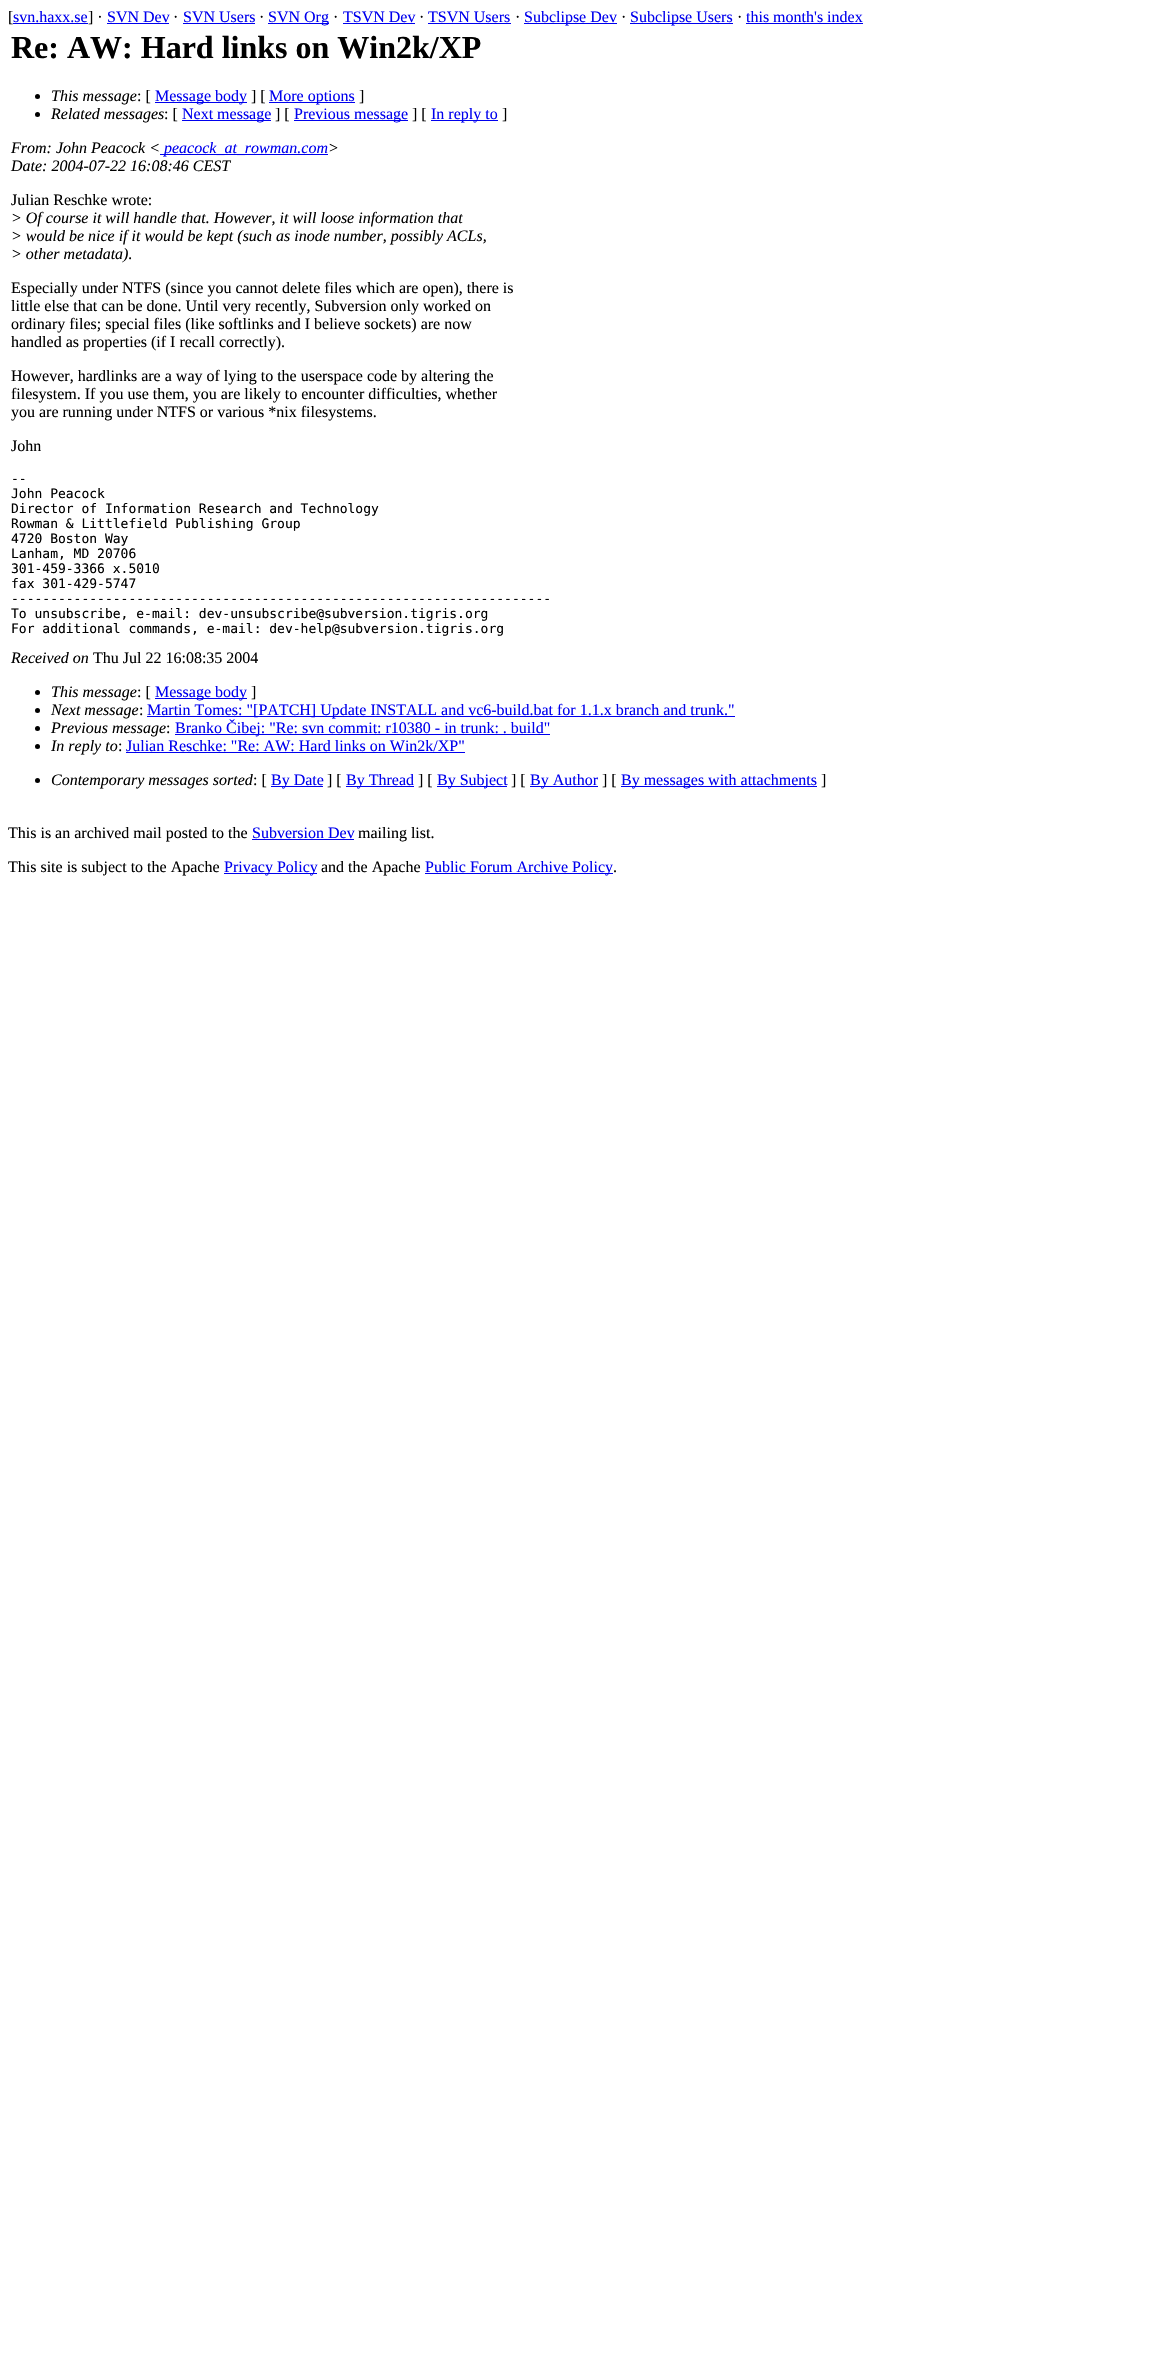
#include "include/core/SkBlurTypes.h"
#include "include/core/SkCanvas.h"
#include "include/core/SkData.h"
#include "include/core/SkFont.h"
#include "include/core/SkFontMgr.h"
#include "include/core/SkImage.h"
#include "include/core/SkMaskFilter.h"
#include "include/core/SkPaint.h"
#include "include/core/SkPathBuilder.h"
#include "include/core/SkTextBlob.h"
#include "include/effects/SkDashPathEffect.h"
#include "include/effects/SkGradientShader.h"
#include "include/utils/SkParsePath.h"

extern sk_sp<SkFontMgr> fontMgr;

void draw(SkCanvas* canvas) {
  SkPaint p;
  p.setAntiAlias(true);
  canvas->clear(SK_ColorWHITE);
  p.setColor(SkColorSetRGB(0, 0, 238));
  canvas->drawRect(SkRect::MakeLTRB(13, 23, 88, 24), p);
  canvas->drawRect(SkRect::MakeLTRB(107, 23, 169, 24), p);
  canvas->drawRect(SkRect::MakeLTRB(183, 23, 255, 24), p);
  canvas->drawRect(SkRect::MakeLTRB(268, 23, 329, 24), p);
  canvas->drawRect(SkRect::MakeLTRB(343, 23, 415, 24), p);
  canvas->drawRect(SkRect::MakeLTRB(428, 23, 511, 24), p);
  canvas->drawRect(SkRect::MakeLTRB(524, 23, 617, 24), p);
  canvas->drawRect(SkRect::MakeLTRB(630, 23, 733, 24), p);
  canvas->drawRect(SkRect::MakeLTRB(746, 23, 863, 24), p);
  p.setColor(SK_ColorBLACK);
  canvas->drawCircle(37.5f, 96.5f, 2.5f, p);
  p.setColor(SkColorSetRGB(0, 0, 238));
  canvas->drawRect(SkRect::MakeLTRB(155, 102, 247, 103), p);
  canvas->drawRect(SkRect::MakeLTRB(269, 102, 355, 103), p);
  p.setColor(SK_ColorBLACK);
  canvas->drawCircle(37.5f, 114.5f, 2.5f, p);
  p.setColor(SkColorSetRGB(0, 0, 238));
  canvas->drawRect(SkRect::MakeLTRB(182, 120, 271, 121), p);
  canvas->drawRect(SkRect::MakeLTRB(294, 120, 408, 121), p);
  canvas->drawRect(SkRect::MakeLTRB(431, 120, 498, 121), p);
  canvas->drawRect(SkRect::MakeLTRB(160, 154, 328, 155), p);
  p.setColor(SK_ColorBLACK);
  canvas->drawCircle(37.5f, 692.5f, 2.5f, p);
  p.setColor(SkColorSetRGB(0, 0, 238));
  canvas->drawRect(SkRect::MakeLTRB(155, 698, 247, 699), p);
  p.setColor(SK_ColorBLACK);
  canvas->drawCircle(37.5f, 710.5f, 2.5f, p);
  p.setColor(SkColorSetRGB(0, 0, 238));
  canvas->drawRect(SkRect::MakeLTRB(147, 716, 735, 717), p);
  p.setColor(SK_ColorBLACK);
  canvas->drawCircle(37.5f, 728.5f, 2.5f, p);
  p.setColor(SkColorSetRGB(0, 0, 238));
  canvas->drawRect(SkRect::MakeLTRB(175, 734, 550, 735), p);
  p.setColor(SK_ColorBLACK);
  canvas->drawCircle(37.5f, 746.5f, 2.5f, p);
  p.setColor(SkColorSetRGB(0, 0, 238));
  canvas->drawRect(SkRect::MakeLTRB(126, 752, 465, 753), p);
  p.setColor(SK_ColorBLACK);
  canvas->drawCircle(37.5f, 780.5f, 2.5f, p);
  p.setColor(SkColorSetRGB(0, 0, 238));
  canvas->drawRect(SkRect::MakeLTRB(271, 786, 323, 787), p);
  canvas->drawRect(SkRect::MakeLTRB(346, 786, 414, 787), p);
  canvas->drawRect(SkRect::MakeLTRB(437, 786, 507, 787), p);
  canvas->drawRect(SkRect::MakeLTRB(530, 786, 598, 787), p);
  canvas->drawRect(SkRect::MakeLTRB(621, 786, 817, 787), p);
  canvas->drawRect(SkRect::MakeLTRB(252, 839, 354, 840), p);
  canvas->drawRect(SkRect::MakeLTRB(224, 873, 317, 874), p);
  canvas->drawRect(SkRect::MakeLTRB(425, 873, 613, 874), p);
  SkFont font1(fontMgr->matchFamilyStyle("Liberation Serif", SkFontStyle::Normal()), 16);
  font1.setSubpixel(true);
  p.setColor(SK_ColorBLACK);
  canvas->drawString("[", 8, 22, font1, p);
  p.setColor(SkColorSetRGB(0, 0, 238));
  canvas->drawString("svn.haxx.se", 13, 22, font1, p);
  p.setColor(SK_ColorBLACK);
  canvas->drawString("] ·", 88, 22, font1, p);
  p.setColor(SkColorSetRGB(0, 0, 238));
  canvas->drawString("SVN Dev", 107, 22, font1, p);
  p.setColor(SK_ColorBLACK);
  canvas->drawString("·", 173, 22, font1, p);
  p.setColor(SkColorSetRGB(0, 0, 238));
  canvas->drawString("SVN Users", 183, 22, font1, p);
  p.setColor(SK_ColorBLACK);
  canvas->drawString("·", 259, 22, font1, p);
  p.setColor(SkColorSetRGB(0, 0, 238));
  canvas->drawString("SVN Org", 268, 22, font1, p);
  p.setColor(SK_ColorBLACK);
  canvas->drawString("·", 333, 22, font1, p);
  p.setColor(SkColorSetRGB(0, 0, 238));
  canvas->drawString("TSVN Dev", 343, 22, font1, p);
  p.setColor(SK_ColorBLACK);
  canvas->drawString("·", 419, 22, font1, p);
  p.setColor(SkColorSetRGB(0, 0, 238));
  canvas->drawString("TSVN Users", 428, 22, font1, p);
  p.setColor(SK_ColorBLACK);
  canvas->drawString("·", 515, 22, font1, p);
  p.setColor(SkColorSetRGB(0, 0, 238));
  canvas->drawString("Subclipse Dev", 524, 22, font1, p);
  p.setColor(SK_ColorBLACK);
  canvas->drawString("·", 621, 22, font1, p);
  p.setColor(SkColorSetRGB(0, 0, 238));
  canvas->drawString("Subclipse Users", 630, 22, font1, p);
  p.setColor(SK_ColorBLACK);
  canvas->drawString("·", 737, 22, font1, p);
  p.setColor(SkColorSetRGB(0, 0, 238));
  canvas->drawString("this month's index", 746, 22, font1, p);
  SkFont font2(fontMgr->matchFamilyStyle("Liberation Serif", SkFontStyle::Bold()), 32);
  font2.setSubpixel(true);
  p.setColor(SK_ColorBLACK);
  canvas->drawString("Re: AW: Hard links on Win2k/XP", 11, 58, font2, p);
  SkFont font3(fontMgr->matchFamilyStyle("Liberation Serif", SkFontStyle::Italic()), 16);
  font3.setSubpixel(true);
  canvas->drawString("This message", 51, 101, font3, p);
  canvas->drawString(": [", 137, 101, font1, p);
  p.setColor(SkColorSetRGB(0, 0, 238));
  canvas->drawString("Message body", 155, 101, font1, p);
  p.setColor(SK_ColorBLACK);
  canvas->drawString("] [", 251, 101, font1, p);
  p.setColor(SkColorSetRGB(0, 0, 238));
  canvas->drawString("More options", 269, 101, font1, p);
  p.setColor(SK_ColorBLACK);
  canvas->drawString("]", 359, 101, font1, p);
  canvas->drawString("Related messages", 51, 119, font3, p);
  canvas->drawString(": [", 164, 119, font1, p);
  p.setColor(SkColorSetRGB(0, 0, 238));
  canvas->drawString("Next message", 182, 119, font1, p);
  p.setColor(SK_ColorBLACK);
  canvas->drawString("] [", 275, 119, font1, p);
  p.setColor(SkColorSetRGB(0, 0, 238));
  canvas->drawString("Previous message", 294, 119, font1, p);
  p.setColor(SK_ColorBLACK);
  canvas->drawString("] [", 412, 119, font1, p);
  p.setColor(SkColorSetRGB(0, 0, 238));
  canvas->drawString("In reply to", 431, 119, font1, p);
  p.setColor(SK_ColorBLACK);
  canvas->drawString("]", 502, 119, font1, p);
  canvas->drawString("From: John Peacock <", 11, 153, font3, p);
  p.setColor(SkColorSetRGB(0, 0, 238));
  canvas->drawString("peacock_at_rowman.com", 164, 153, font3, p);
  p.setColor(SK_ColorBLACK);
  canvas->drawString(">", 328, 153, font3, p);
  canvas->drawString("Date: 2004-07-22 16:08:46 CEST", 11, 171, font3, p);
  canvas->drawString("Julian Reschke wrote:", 11, 205, font1, p);
  canvas->drawString("> Of course it will handle that. However, it will loose information that", 11, 223, font3, p);
  canvas->drawString("> would be nice if it would be kept (such as inode number, possibly ACLs,", 11, 241, font3, p);
  canvas->drawString("> other metadata).", 11, 259, font3, p);
  canvas->drawString("Especially under NTFS (since you cannot delete files which are open), there is", 11, 293, font1, p);
  canvas->drawString("little else that can be done. Until very recently, Subversion only worked on", 11, 311, font1, p);
  canvas->drawString("ordinary files; special files (like softlinks and I believe sockets) are now", 11, 329, font1, p);
  canvas->drawString("handled as properties (if I recall correctly).", 11, 347, font1, p);
  canvas->drawString("However, hardlinks are a way of lying to the userspace code by altering the", 11, 381, font1, p);
  canvas->drawString("filesystem. If you use them, you are likely to encounter difficulties, whether", 11, 399, font1, p);
  canvas->drawString("you are running under NTFS or various *nix filesystems.", 11, 417, font1, p);
  canvas->drawString("John", 11, 451, font1, p);
  SkFont font4(fontMgr->matchFamilyStyle("DejaVu Sans Mono", SkFontStyle::Normal()), 13);
  font4.setSubpixel(true);
  canvas->drawString("--", 11, 483, font4, p);
  canvas->drawString("John Peacock", 11, 498, font4, p);
  canvas->drawString("Director of Information Research and Technology", 11, 513, font4, p);
  canvas->drawString("Rowman & Littlefield Publishing Group", 11, 528, font4, p);
  canvas->drawString("4720 Boston Way", 11, 543, font4, p);
  canvas->drawString("Lanham, MD 20706", 11, 558, font4, p);
  canvas->drawString("301-459-3366 x.5010", 11, 573, font4, p);
  canvas->drawString("fax 301-429-5747", 11, 588, font4, p);
  canvas->drawString("---------------------------------------------------------------------", 11, 603, font4, p);
  canvas->drawString("To unsubscribe, e-mail: dev-unsubscribe@subversion.tigris.org", 11, 618, font4, p);
  canvas->drawString("For additional commands, e-mail: dev-help@subversion.tigris.org", 11, 633, font4, p);
  canvas->drawString("Received on", 11, 663, font3, p);
  canvas->drawString("Thu Jul 22 16:08:35 2004", 93, 663, font1, p);
  canvas->drawString("This message", 51, 697, font3, p);
  canvas->drawString(": [", 137, 697, font1, p);
  p.setColor(SkColorSetRGB(0, 0, 238));
  canvas->drawString("Message body", 155, 697, font1, p);
  p.setColor(SK_ColorBLACK);
  canvas->drawString("]", 251, 697, font1, p);
  canvas->drawString("Next message", 51, 715, font3, p);
  canvas->drawString(":", 139, 715, font1, p);
  p.setColor(SkColorSetRGB(0, 0, 238));
  canvas->drawString("Martin Tomes: \"[PATCH] Update INSTALL and vc6-build.bat for 1.1.x branch and trunk.\"", 147, 715, font1, p);
  p.setColor(SK_ColorBLACK);
  canvas->drawString("Previous message", 51, 733, font3, p);
  canvas->drawString(":", 166, 733, font1, p);
  p.setColor(SkColorSetRGB(0, 0, 238));
  canvas->drawString("Branko Čibej: \"Re: svn commit: r10380 - in trunk: . build\"", 175, 733, font1, p);
  p.setColor(SK_ColorBLACK);
  canvas->drawString("In reply to", 51, 751, font3, p);
  canvas->drawString(":", 118, 751, font1, p);
  p.setColor(SkColorSetRGB(0, 0, 238));
  canvas->drawString("Julian Reschke: \"Re: AW: Hard links on Win2k/XP\"", 126, 751, font1, p);
  p.setColor(SK_ColorBLACK);
  canvas->drawString("Contemporary messages sorted", 51, 785, font3, p);
  canvas->drawString(": [", 253, 785, font1, p);
  p.setColor(SkColorSetRGB(0, 0, 238));
  canvas->drawString("By Date", 271, 785, font1, p);
  p.setColor(SK_ColorBLACK);
  canvas->drawString("] [", 327, 785, font1, p);
  p.setColor(SkColorSetRGB(0, 0, 238));
  canvas->drawString("By Thread", 346, 785, font1, p);
  p.setColor(SK_ColorBLACK);
  canvas->drawString("] [", 418, 785, font1, p);
  p.setColor(SkColorSetRGB(0, 0, 238));
  canvas->drawString("By Subject", 437, 785, font1, p);
  p.setColor(SK_ColorBLACK);
  canvas->drawString("] [", 511, 785, font1, p);
  p.setColor(SkColorSetRGB(0, 0, 238));
  canvas->drawString("By Author", 530, 785, font1, p);
  p.setColor(SK_ColorBLACK);
  canvas->drawString("] [", 602, 785, font1, p);
  p.setColor(SkColorSetRGB(0, 0, 238));
  canvas->drawString("By messages with attachments", 621, 785, font1, p);
  p.setColor(SK_ColorBLACK);
  canvas->drawString("]", 821, 785, font1, p);
  canvas->drawString("This is an archived mail posted to the", 8, 838, font1, p);
  p.setColor(SkColorSetRGB(0, 0, 238));
  canvas->drawString("Subversion Dev", 252, 838, font1, p);
  p.setColor(SK_ColorBLACK);
  canvas->drawString("mailing list.", 358, 838, font1, p);
  canvas->drawString("This site is subject to the Apache", 8, 872, font1, p);
  p.setColor(SkColorSetRGB(0, 0, 238));
  canvas->drawString("Privacy Policy", 224, 872, font1, p);
  p.setColor(SK_ColorBLACK);
  canvas->drawString("and the Apache", 321, 872, font1, p);
  p.setColor(SkColorSetRGB(0, 0, 238));
  canvas->drawString("Public Forum Archive Policy", 425, 872, font1, p);
  p.setColor(SK_ColorBLACK);
  canvas->drawString(".", 613, 872, font1, p);
}
